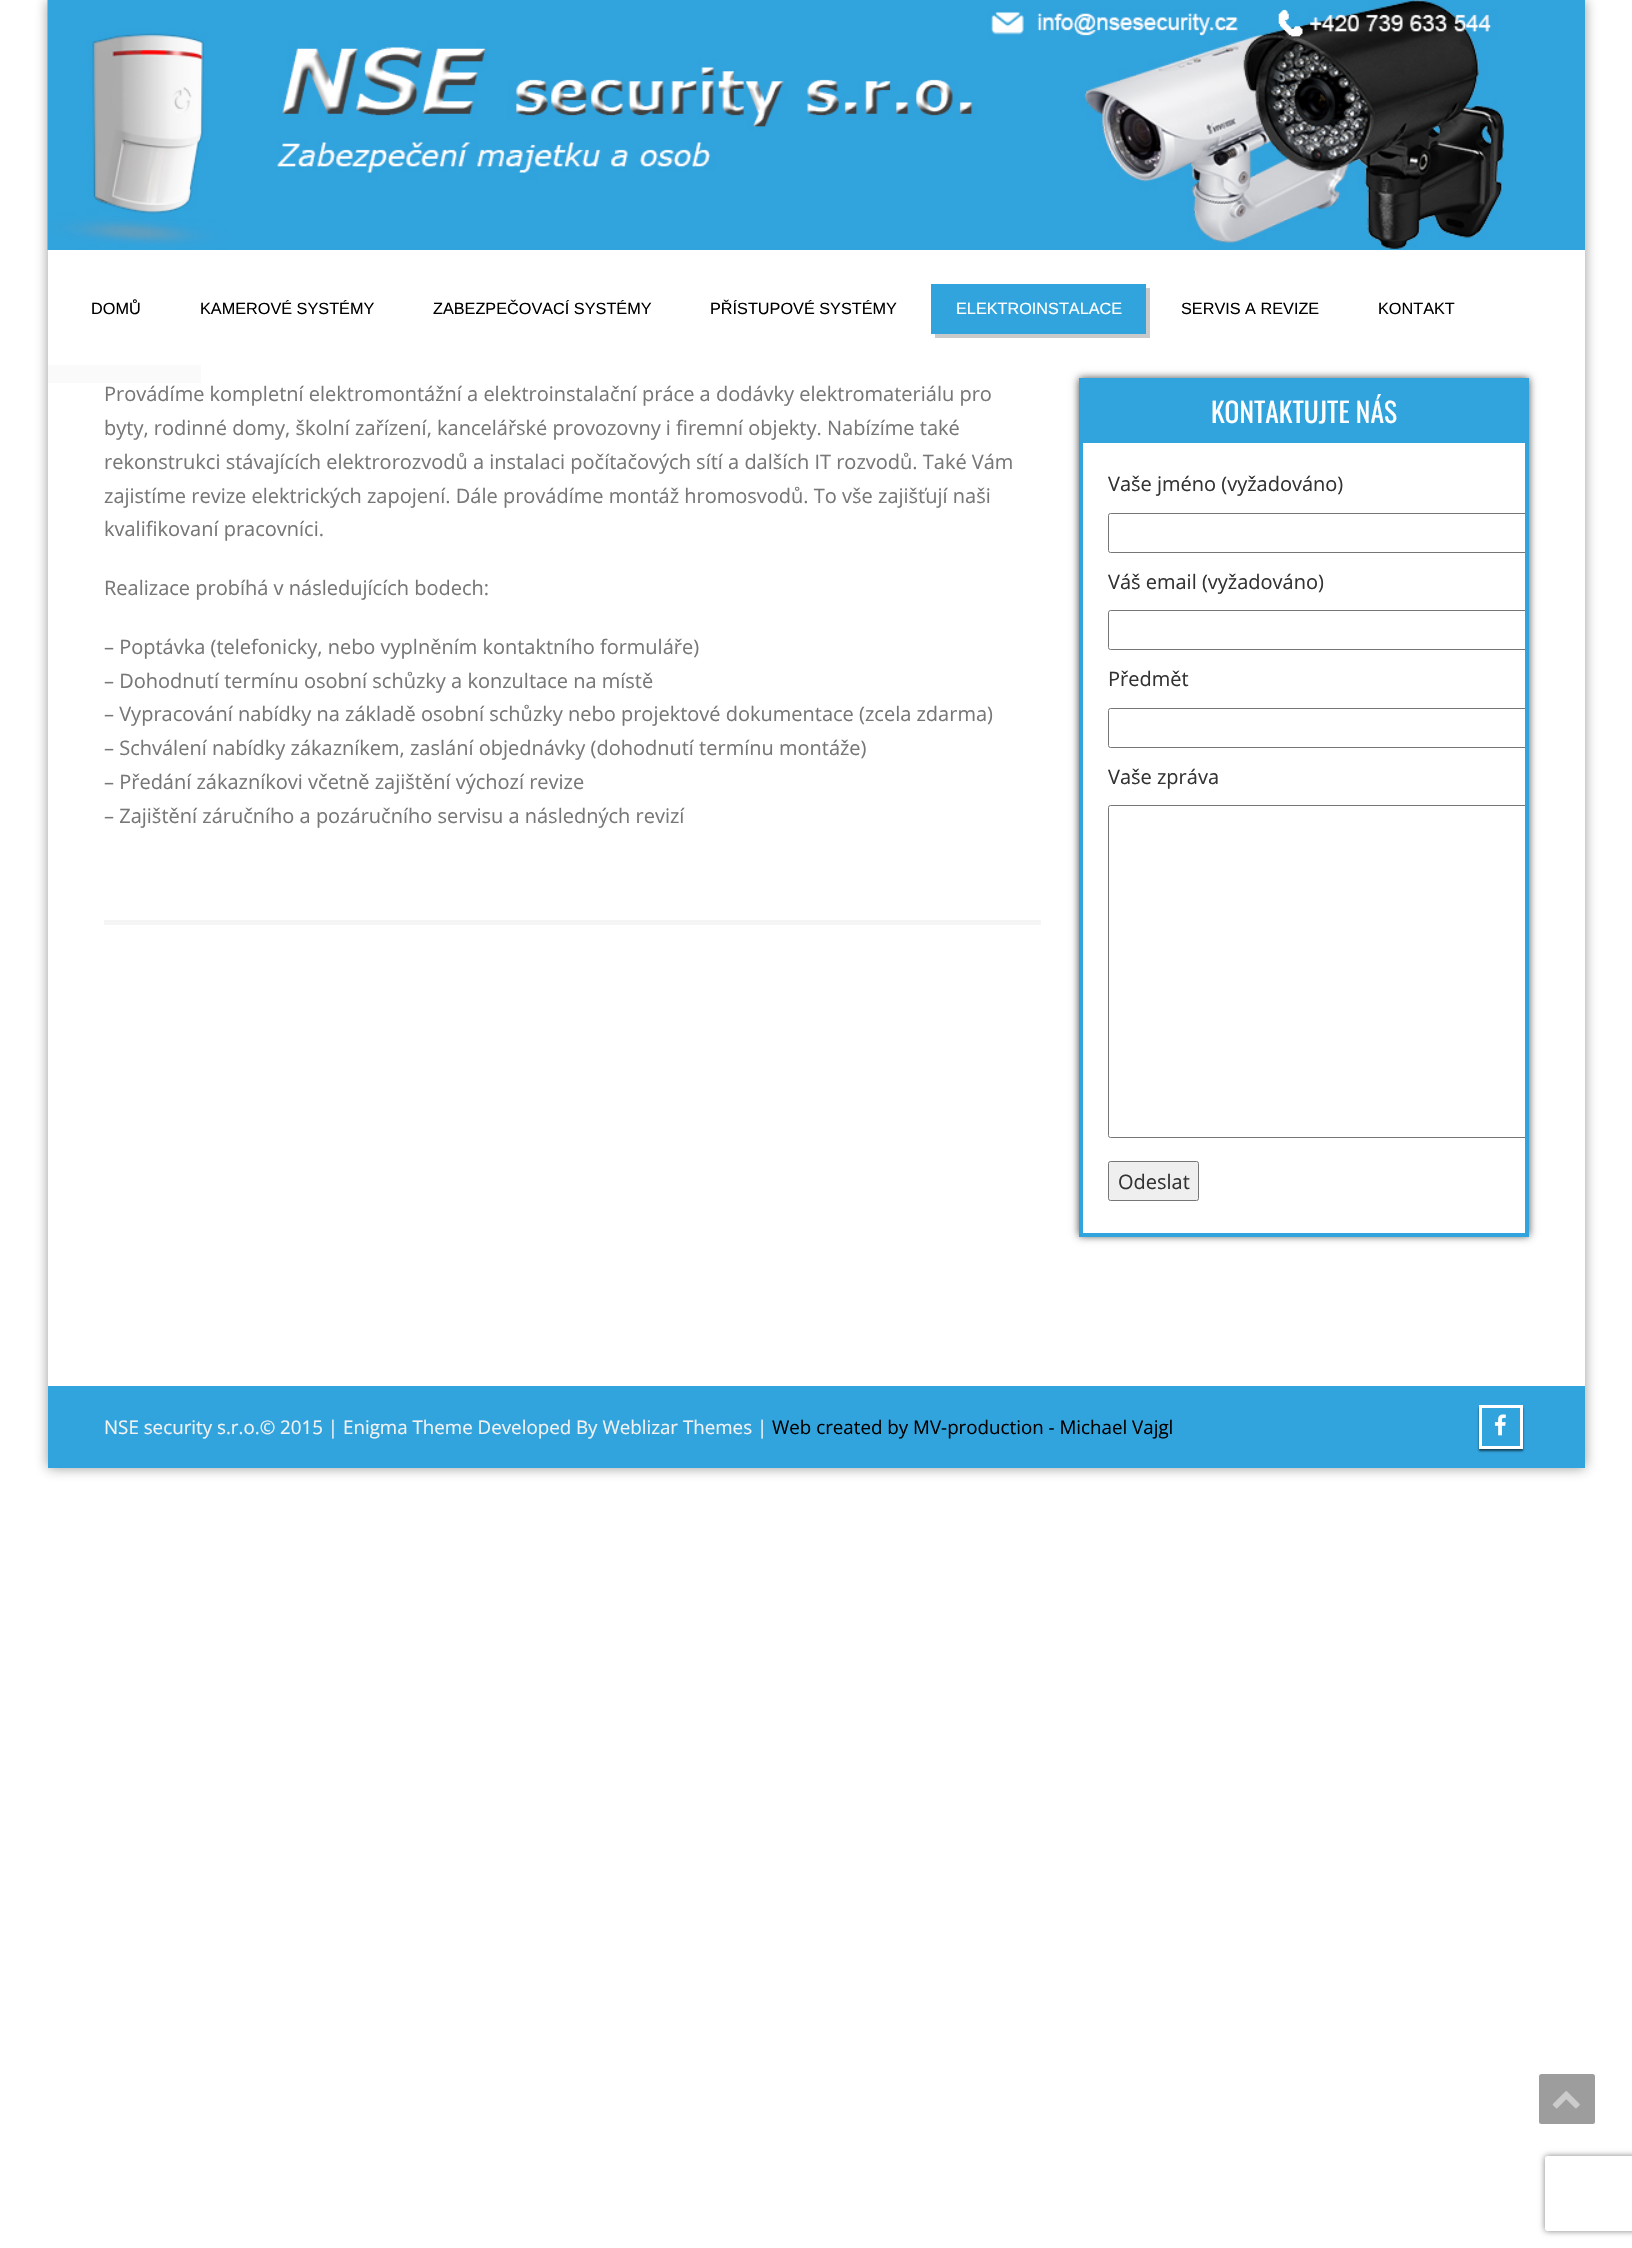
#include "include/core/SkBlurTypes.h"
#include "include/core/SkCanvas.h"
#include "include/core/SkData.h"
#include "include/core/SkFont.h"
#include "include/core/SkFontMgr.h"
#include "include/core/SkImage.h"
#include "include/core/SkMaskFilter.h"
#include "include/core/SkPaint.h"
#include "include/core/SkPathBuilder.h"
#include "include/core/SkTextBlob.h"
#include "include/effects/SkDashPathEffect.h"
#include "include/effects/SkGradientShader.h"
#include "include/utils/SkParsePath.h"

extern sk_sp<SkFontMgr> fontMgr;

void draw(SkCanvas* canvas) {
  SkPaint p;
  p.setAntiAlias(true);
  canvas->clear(SK_ColorWHITE);
  p.setColor(SkColorSetARGB(128, 48, 48, 48));
  p.setMaskFilter(SkMaskFilter::MakeBlur(kNormal_SkBlurStyle, 6));
  canvas->drawRect(SkRect::MakeLTRB(48, 0, 1585, 1468), p);
  p.setMaskFilter(nullptr);
  p.setColor(SK_ColorWHITE);
  canvas->drawRect(SkRect::MakeLTRB(48, 250, 1585, 1386), p);
  p.setColor(SkColorSetRGB(49, 163, 221));
  canvas->drawRect(SkRect::MakeLTRB(1504, 0, 1585, 250), p);
  canvas->drawImageRect(SkImages::DeferredFromEncodedData(SkData::MakeFromFileName("images/1.png")), SkRect::MakeLTRB(47, 0, 1504, 250), SkSamplingOptions());
  p.setColor(SkColorSetRGB(201, 201, 201));
  canvas->drawPath(SkPathBuilder().moveTo(935, 334).lineTo(935, 338).lineTo(1150, 338).lineTo(1150, 288).lineTo(1146, 288).lineTo(1146, 334).close().detach(), p);
  p.setColor(SkColorSetRGB(49, 163, 221));
  canvas->drawRect(SkRect::MakeLTRB(931, 284, 1146, 334), p);
  p.setColor(SkColorSetRGB(250, 250, 250));
  canvas->drawRect(SkRect::MakeLTRB(48, 365, 201, 383), p);
  p.setColor(SkColorSetRGB(245, 245, 245));
  canvas->drawRect(SkRect::MakeLTRB(104, 920, 1041, 925), p);
  p.setColor(SkColorSetARGB(179, 0, 0, 0));
  p.setMaskFilter(SkMaskFilter::MakeBlur(kNormal_SkBlurStyle, 4));
  canvas->drawRect(SkRect::MakeLTRB(1079, 378, 1529, 1236), p);
  p.setMaskFilter(nullptr);
  p.setColor(SK_ColorWHITE);
  canvas->drawRect(SkRect::MakeLTRB(1083, 443, 1525, 1233), p);
  p.setColor(SkColorSetRGB(49, 163, 221));
  canvas->drawRect(SkRect::MakeLTRB(1525, 378, 1529, 1236), p);
  canvas->drawRect(SkRect::MakeLTRB(1079, 1233, 1529, 1237), p);
  canvas->drawRect(SkRect::MakeLTRB(1079, 378, 1083, 1236), p);
  canvas->drawRect(SkRect::MakeLTRB(1083, 378, 1525, 443), p);
  canvas->save();
  canvas->clipRect(SkRect::MakeLTRB(1083, 378, 1525, 1233));
  p.setStyle(SkPaint::kStroke_Style);
  p.setStrokeWidth(1);
  p.setColor(SkColorSetRGB(118, 118, 118));
  canvas->drawRoundRect(SkRect::MakeLTRB(1108.5f, 513.5f, 1545.5f, 552.5f), 2, 2, p);
  canvas->drawRoundRect(SkRect::MakeLTRB(1108.5f, 610.5f, 1545.5f, 649.5f), 2, 2, p);
  canvas->drawRoundRect(SkRect::MakeLTRB(1108.5f, 708.5f, 1545.5f, 747.5f), 2, 2, p);
  canvas->drawRoundRect(SkRect::MakeLTRB(1108.5f, 805.5f, 1543.5f, 1137.5f), 2, 2, p);
  canvas->restore();
  p.setStyle(SkPaint::kFill_Style);
  p.setColor(SkColorSetRGB(239, 239, 239));
  canvas->drawRoundRect(SkRect::MakeLTRB(1108.5f, 1161.5f, 1198.5f, 1200.5f), 2, 2, p);
  p.setStyle(SkPaint::kStroke_Style);
  p.setColor(SkColorSetRGB(118, 118, 118));
  canvas->drawRoundRect(SkRect::MakeLTRB(1108.5f, 1161.5f, 1198.5f, 1200.5f), 2, 2, p);
  p.setStyle(SkPaint::kFill_Style);
  p.setColor(SkColorSetRGB(49, 163, 221));
  canvas->drawRect(SkRect::MakeLTRB(48, 1386, 1585, 1468), p);
  canvas->save();
  canvas->clipPath(SkPathBuilder(SkPathFillType::kEvenOdd).moveTo(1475, 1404).lineTo(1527, 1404).lineTo(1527, 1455).lineTo(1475, 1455).close().moveTo(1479, 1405).lineTo(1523, 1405).lineTo(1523, 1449).lineTo(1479, 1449).close().detach(), true);
  p.setColor(SkColorSetARGB(153, 0, 0, 0));
  p.setMaskFilter(SkMaskFilter::MakeBlur(kNormal_SkBlurStyle, 1));
  canvas->drawRect(SkRect::MakeLTRB(1479, 1408, 1523, 1451), p);
  p.setMaskFilter(nullptr);
  canvas->restore();
  p.setStyle(SkPaint::kStroke_Style);
  p.setStrokeWidth(3);
  p.setColor(SK_ColorWHITE);
  canvas->drawRect(SkRect::MakeLTRB(1480.5f, 1406.5f, 1521.5f, 1447.5f), p);
  canvas->drawImageRect(SkImages::DeferredFromEncodedData(SkData::MakeFromFileName("images/2.png")), SkRect::MakeLTRB(1494, 1414, 1506, 1436), SkSamplingOptions());
  p.setStyle(SkPaint::kFill_Style);
  p.setColor(SkColorSetRGB(157, 157, 157));
  canvas->drawRoundRect(SkRect::MakeLTRB(1539, 2074, 1595, 2124), 2.5f, 2.5f, p);
  canvas->drawImageRect(SkImages::DeferredFromEncodedData(SkData::MakeFromFileName("images/3.png")), SkRect::MakeLTRB(1552, 2091, 1580, 2109), SkSamplingOptions());
  canvas->save();
  canvas->clipPath(SkPathBuilder(SkPathFillType::kEvenOdd).moveTo(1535, 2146).lineTo(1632, 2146).lineTo(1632, 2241).lineTo(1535, 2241).close().moveTo(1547.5f, 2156).lineTo(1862.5f, 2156).cubicTo(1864, 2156, 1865, 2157, 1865, 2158.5f).lineTo(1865, 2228.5f).cubicTo(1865, 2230, 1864, 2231, 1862.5f, 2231).lineTo(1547.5f, 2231).cubicTo(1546, 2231, 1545, 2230, 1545, 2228.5f).lineTo(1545, 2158.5f).cubicTo(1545, 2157, 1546, 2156, 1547.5f, 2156).close().detach(), true);
  p.setColor(SkColorSetRGB(128, 128, 128));
  p.setMaskFilter(SkMaskFilter::MakeBlur(kNormal_SkBlurStyle, 3));
  canvas->drawRoundRect(SkRect::MakeLTRB(1545, 2156, 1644, 2231), 2.5f, 2.5f, p);
  p.setMaskFilter(nullptr);
  canvas->restore();
  SkFont font1(fontMgr->matchFamilyStyle("Liberation Sans", SkFontStyle::Normal()), 16.25f);
  font1.setSubpixel(true);
  p.setColor(SK_ColorBLACK);
  canvas->drawString("DOMŮ", 91, 314, font1, p);
  canvas->drawString("KAMEROVÉ SYSTÉMY", 200, 314, font1, p);
  canvas->drawString("ZABEZPEČOVACÍ SYSTÉMY", 433, 314, font1, p);
  canvas->drawString("PŘÍSTUPOVÉ SYSTÉMY", 710, 314, font1, p);
  p.setColor(SK_ColorWHITE);
  canvas->drawString("ELEKTROINSTALACE", 956, 314, font1, p);
  p.setColor(SK_ColorBLACK);
  canvas->drawString("SERVIS A REVIZE", 1181, 314, font1, p);
  canvas->drawString("KONTAKT", 1378, 314, font1, p);
  SkFont font2(fontMgr->matchFamilyStyle("Open Sans", SkFontStyle::Normal()), 20);
  font2.setSubpixel(true);
  p.setColor(SkColorSetRGB(119, 119, 119));
  canvas->drawString("Provádíme kompletní elektromontážní a elektroinstalační práce a dodávky elektromateriálu pro", 104, 401, font2, p);
  canvas->drawString("byty, rodinné domy, školní zařízení, kancelářské provozovny i firemní objekty. Nabízíme také", 104, 435, font2, p);
  canvas->drawString("rekonstrukci stávajících elektrorozvodů a instalaci počítačových sítí a dalších IT rozvodů. Také Vám", 104, 469, font2, p);
  canvas->drawString("zajistíme revize elektrických zapojení. Dále provádíme montáž hromosvodů. To vše zajišťují naši", 104, 503, font2, p);
  canvas->drawString("kvalifikovaní pracovníci.", 104, 536, font2, p);
  canvas->drawString("Realizace probíhá v následujících bodech:", 104, 595, font2, p);
  canvas->drawString("– Poptávka (telefonicky, nebo vyplněním kontaktního formuláře)", 104, 654, font2, p);
  canvas->drawString("– Dohodnutí termínu osobní schůzky a konzultace na místě", 104, 688, font2, p);
  canvas->drawString("– Vypracování nabídky na základě osobní schůzky nebo projektové dokumentace (zcela zdarma)", 104, 721, font2, p);
  canvas->drawString("– Schválení nabídky zákazníkem, zaslání objednávky (dohodnutí termínu montáže)", 104, 755, font2, p);
  canvas->drawString("– Předání zákazníkovi včetně zajištění výchozí revize", 104, 789, font2, p);
  canvas->drawString("– Zajištění záručního a pozáručního servisu a následných revizí", 104, 823, font2, p);
  SkFont font3(fontMgr->matchFamilyStyle("Oswald", SkFontStyle::Normal()), 27.5f);
  font3.setSubpixel(true);
  p.setColor(SK_ColorWHITE);
  canvas->drawString("KONTAKTUJTE NÁS", 1211, 423, font3, p);
  p.setColor(SkColorSetRGB(51, 51, 51));
  canvas->drawString("Vaše jméno (vyžadováno)", 1108, 491, font2, p);
  canvas->drawString("Váš email (vyžadováno)", 1108, 589, font2, p);
  canvas->drawString("Předmět", 1108, 686, font2, p);
  canvas->drawString("Vaše zpráva", 1108, 784, font2, p);
  canvas->drawString("Odeslat", 1118, 1189, font2, p);
  SkFont font4(fontMgr->matchFamilyStyle("Open Sans", SkFontStyle::Normal()), 18.75f);
  font4.setSubpixel(true);
  p.setColor(SkColorSetRGB(242, 242, 242));
  canvas->drawString("NSE security s.r.o.© 2015 | Enigma Theme Developed By Weblizar Themes |", 104, 1434, font4, p);
  p.setColor(SK_ColorBLACK);
  canvas->drawString("Web created by MV-production - Michael Vajgl", 772, 1434, font4, p);
}
